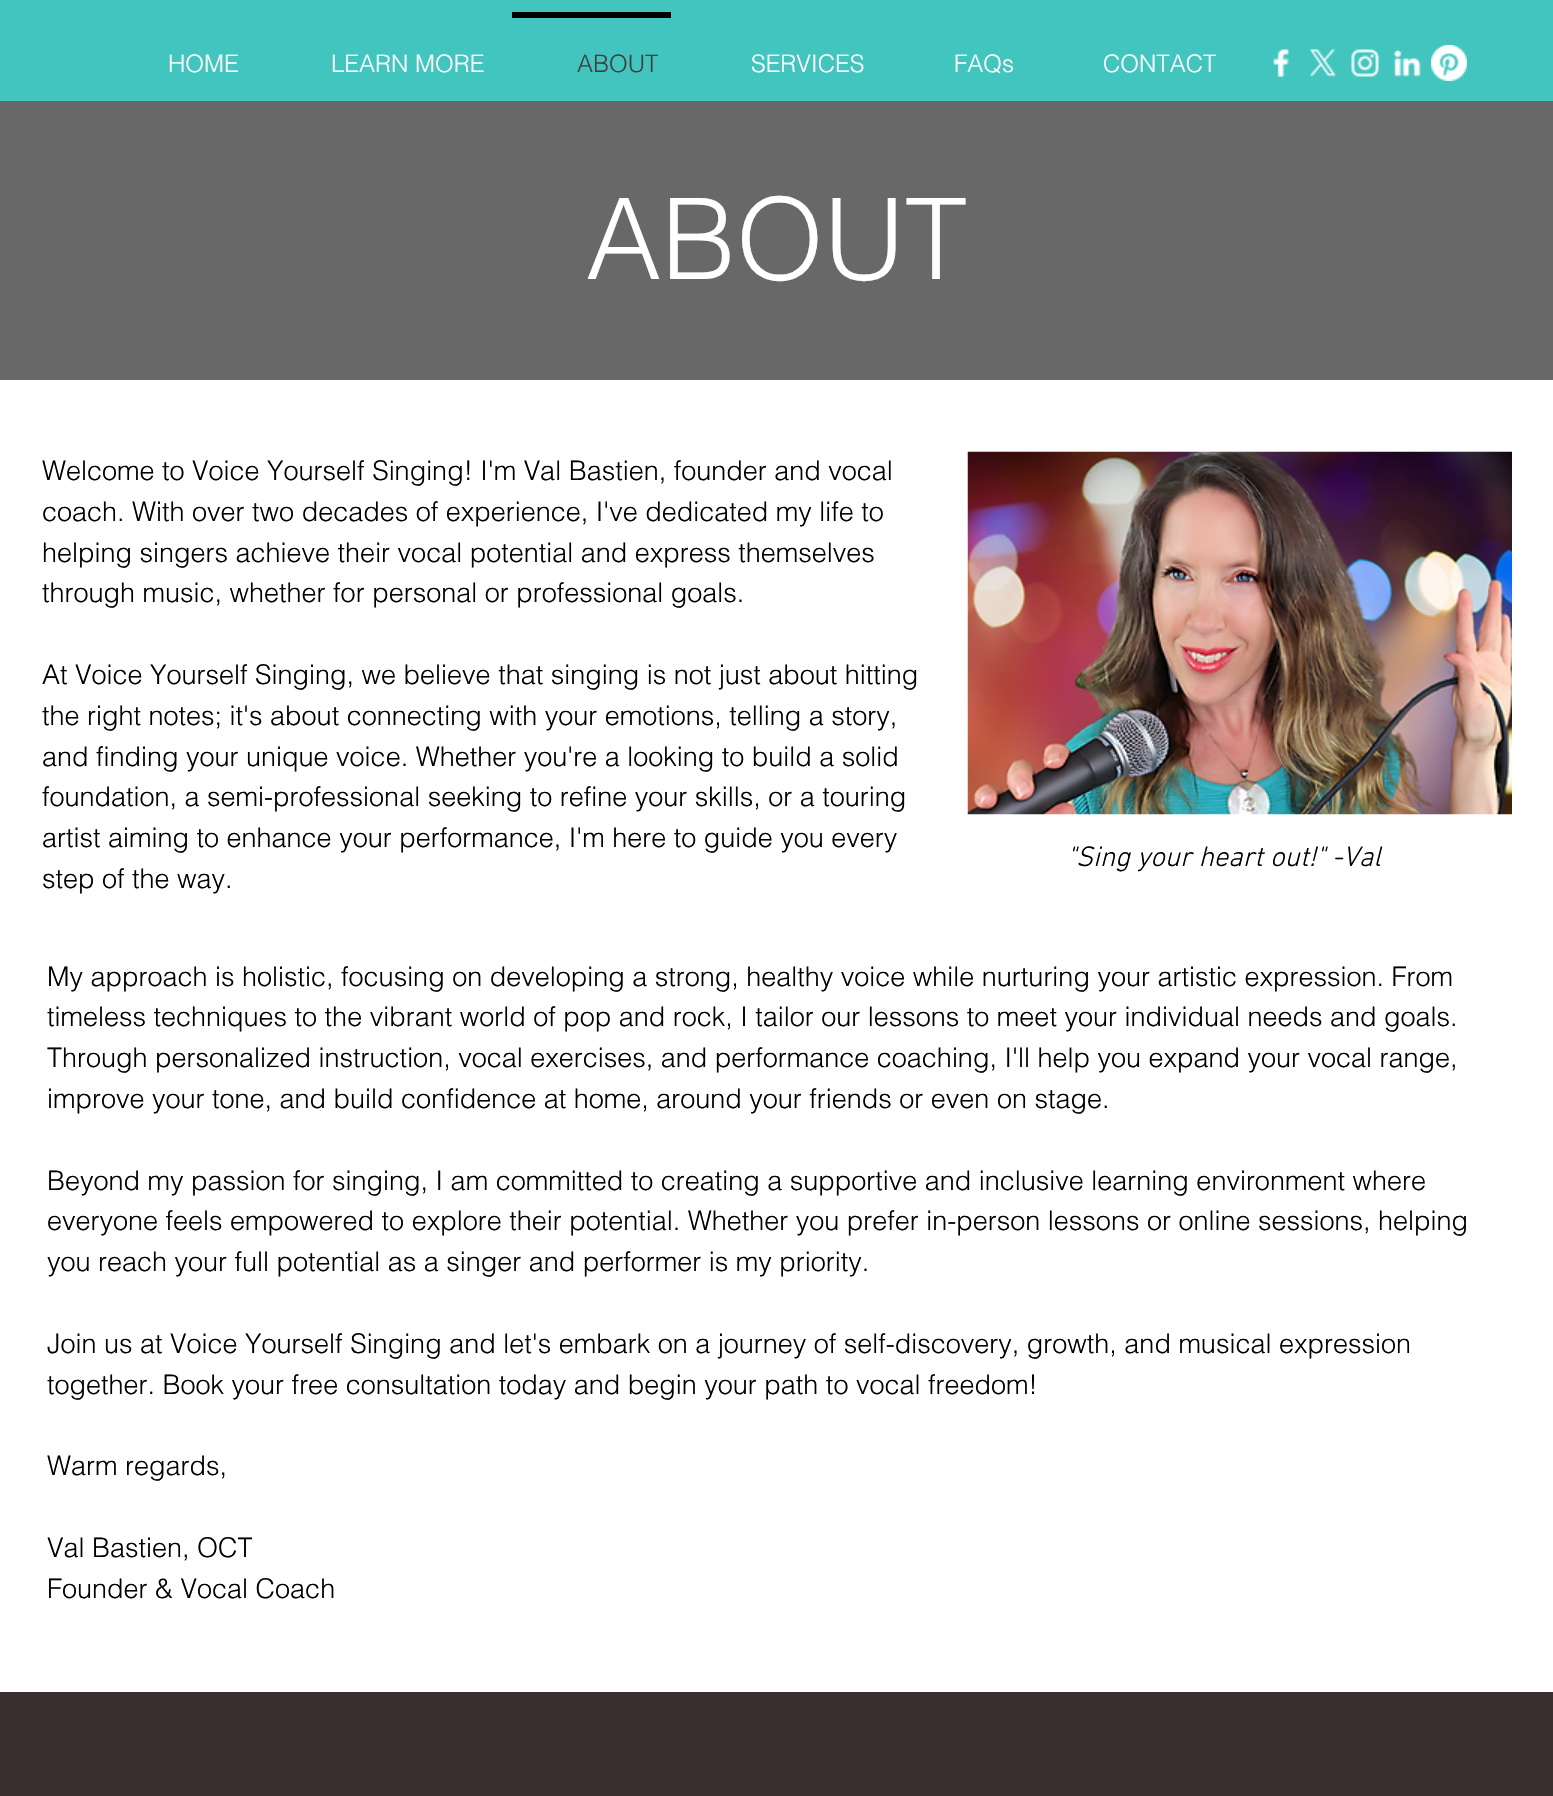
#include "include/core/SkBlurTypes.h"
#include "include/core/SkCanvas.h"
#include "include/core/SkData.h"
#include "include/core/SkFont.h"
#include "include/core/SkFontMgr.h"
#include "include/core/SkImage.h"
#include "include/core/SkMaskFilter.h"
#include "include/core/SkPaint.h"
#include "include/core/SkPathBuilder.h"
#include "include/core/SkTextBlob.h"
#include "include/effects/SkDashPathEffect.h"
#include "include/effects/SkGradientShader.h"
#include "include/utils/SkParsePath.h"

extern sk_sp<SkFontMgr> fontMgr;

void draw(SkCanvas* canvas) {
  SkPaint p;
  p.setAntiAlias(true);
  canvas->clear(SK_ColorWHITE);
  p.setColor(SkColorSetRGB(66, 197, 190));
  canvas->drawRect(SkRect::MakeLTRB(0, 0, 1553, 101), p);
  p.setColor(SkColorSetRGB(2, 2, 2));
  canvas->drawRect(SkRect::MakeLTRB(512, 12, 671, 18), p);
  canvas->drawImageRect(SkImages::DeferredFromEncodedData(SkData::MakeFromFileName("images/1.png")), SkRect::MakeLTRB(1273, 48, 1289, 78), SkSamplingOptions());
  canvas->drawImageRect(SkImages::DeferredFromEncodedData(SkData::MakeFromFileName("images/2.png")), SkRect::MakeLTRB(1309, 48, 1337, 77), SkSamplingOptions());
  canvas->drawImageRect(SkImages::DeferredFromEncodedData(SkData::MakeFromFileName("images/3.png")), SkRect::MakeLTRB(1351, 49, 1379, 77), SkSamplingOptions());
  canvas->drawImageRect(SkImages::DeferredFromEncodedData(SkData::MakeFromFileName("images/4.png")), SkRect::MakeLTRB(1393, 49, 1421, 77), SkSamplingOptions());
  canvas->drawImageRect(SkImages::DeferredFromEncodedData(SkData::MakeFromFileName("images/5.png")), SkRect::MakeLTRB(1431, 45, 1467, 81), SkSamplingOptions());
  p.setColor(SkColorSetRGB(104, 104, 104));
  canvas->drawRect(SkRect::MakeLTRB(0, 101, 1553, 380), p);
  canvas->drawImageRect(SkImages::DeferredFromEncodedData(SkData::MakeFromFileName("images/6.png")), SkRect::MakeLTRB(967, 451, 1512, 815), SkSamplingOptions());
  p.setColor(SkColorSetRGB(58, 47, 47));
  canvas->drawRect(SkRect::MakeLTRB(0, 1692, 1553, 1796), p);
  SkFont font1(fontMgr->matchFamilyStyle("helvetica", SkFontStyle(300, SkFontStyle::kNormal_Width, SkFontStyle::kUpright_Slant)), 24);
  font1.setSubpixel(true);
  p.setColor(SK_ColorWHITE);
  canvas->drawString("HOME", 168, 72, font1, p);
  canvas->drawString("LEARN MORE", 331, 72, font1, p);
  p.setColor(SkColorSetRGB(68, 63, 63));
  canvas->drawString("ABOUT", 577, 72, font1, p);
  p.setColor(SK_ColorWHITE);
  canvas->drawString("SERVICES", 751, 72, font1, p);
  canvas->drawString("FAQs", 954, 72, font1, p);
  canvas->drawString("CONTACT", 1103, 72, font1, p);
  SkFont font2(fontMgr->matchFamilyStyle("helvetica", SkFontStyle(300, SkFontStyle::kNormal_Width, SkFontStyle::kUpright_Slant)), 112.5f);
  font2.setSubpixel(true);
  canvas->drawString("ABOUT", 586, 279, font2, p);
  SkFont font3(fontMgr->matchFamilyStyle("helvetica", SkFontStyle(300, SkFontStyle::kNormal_Width, SkFontStyle::kUpright_Slant)), 27);
  font3.setSubpixel(true);
  p.setColor(SK_ColorBLACK);
  canvas->drawString("Welcome to Voice Yourself Singing! I'm Val Bastien, founder and vocal", 42, 480, font3, p);
  canvas->drawString("coach. With over two decades of experience, I've dedicated my life to", 42, 521, font3, p);
  canvas->drawString("helping singers achieve their vocal potential and express themselves", 42, 562, font3, p);
  canvas->drawString("through music, whether for personal or professional goals.", 42, 602, font3, p);
  canvas->drawString("At Voice Yourself Singing, we believe that singing is not just about hitting", 42, 684, font3, p);
  canvas->drawString("the right notes; it's about connecting with your emotions, telling a story,", 42, 725, font3, p);
  canvas->drawString("and finding your unique voice. Whether you're a looking to build a solid", 42, 766, font3, p);
  canvas->drawString("foundation, a semi-professional seeking to refine your skills, or a touring", 42, 806, font3, p);
  canvas->drawString("artist aiming to enhance your performance, I'm here to guide you every", 42, 847, font3, p);
  canvas->drawString("step of the way.", 42, 888, font3, p);
  SkFont font4(fontMgr->matchFamilyStyle("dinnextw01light", SkFontStyle(300, SkFontStyle::kNormal_Width, SkFontStyle::kItalic_Slant)), 28.5f);
  font4.setSubpixel(true);
  canvas->drawString("\"Sing your heart out!\" -Val", 1067, 866, font4, p);
  canvas->drawString("My approach is holistic, focusing on developing a strong, healthy voice while nurturing your artistic expression. From", 47, 986, font3, p);
  canvas->drawString("timeless techniques to the vibrant world of pop and rock, I tailor our lessons to meet your individual needs and goals.", 47, 1026, font3, p);
  canvas->drawString("Through personalized instruction, vocal exercises, and performance coaching, I'll help you expand your vocal range,", 47, 1067, font3, p);
  canvas->drawString("improve your tone, and build confidence at home, around your friends or even on stage.", 47, 1108, font3, p);
  canvas->drawString("Beyond my passion for singing, I am committed to creating a supportive and inclusive learning environment where", 47, 1190, font3, p);
  canvas->drawString("everyone feels empowered to explore their potential. Whether you prefer in-person lessons or online sessions, helping", 47, 1230, font3, p);
  canvas->drawString("you reach your full potential as a singer and performer is my priority.", 47, 1271, font3, p);
  canvas->drawString("Join us at Voice Yourself Singing and let's embark on a journey of self-discovery, growth, and musical expression", 47, 1353, font3, p);
  canvas->drawString("together. Book your free consultation today and begin your path to vocal freedom!", 47, 1394, font3, p);
  canvas->drawString("Warm regards,", 47, 1475, font3, p);
  canvas->drawString("Val Bastien, OCT", 47, 1557, font3, p);
  canvas->drawString("Founder & Vocal Coach", 47, 1598, font3, p);
}
